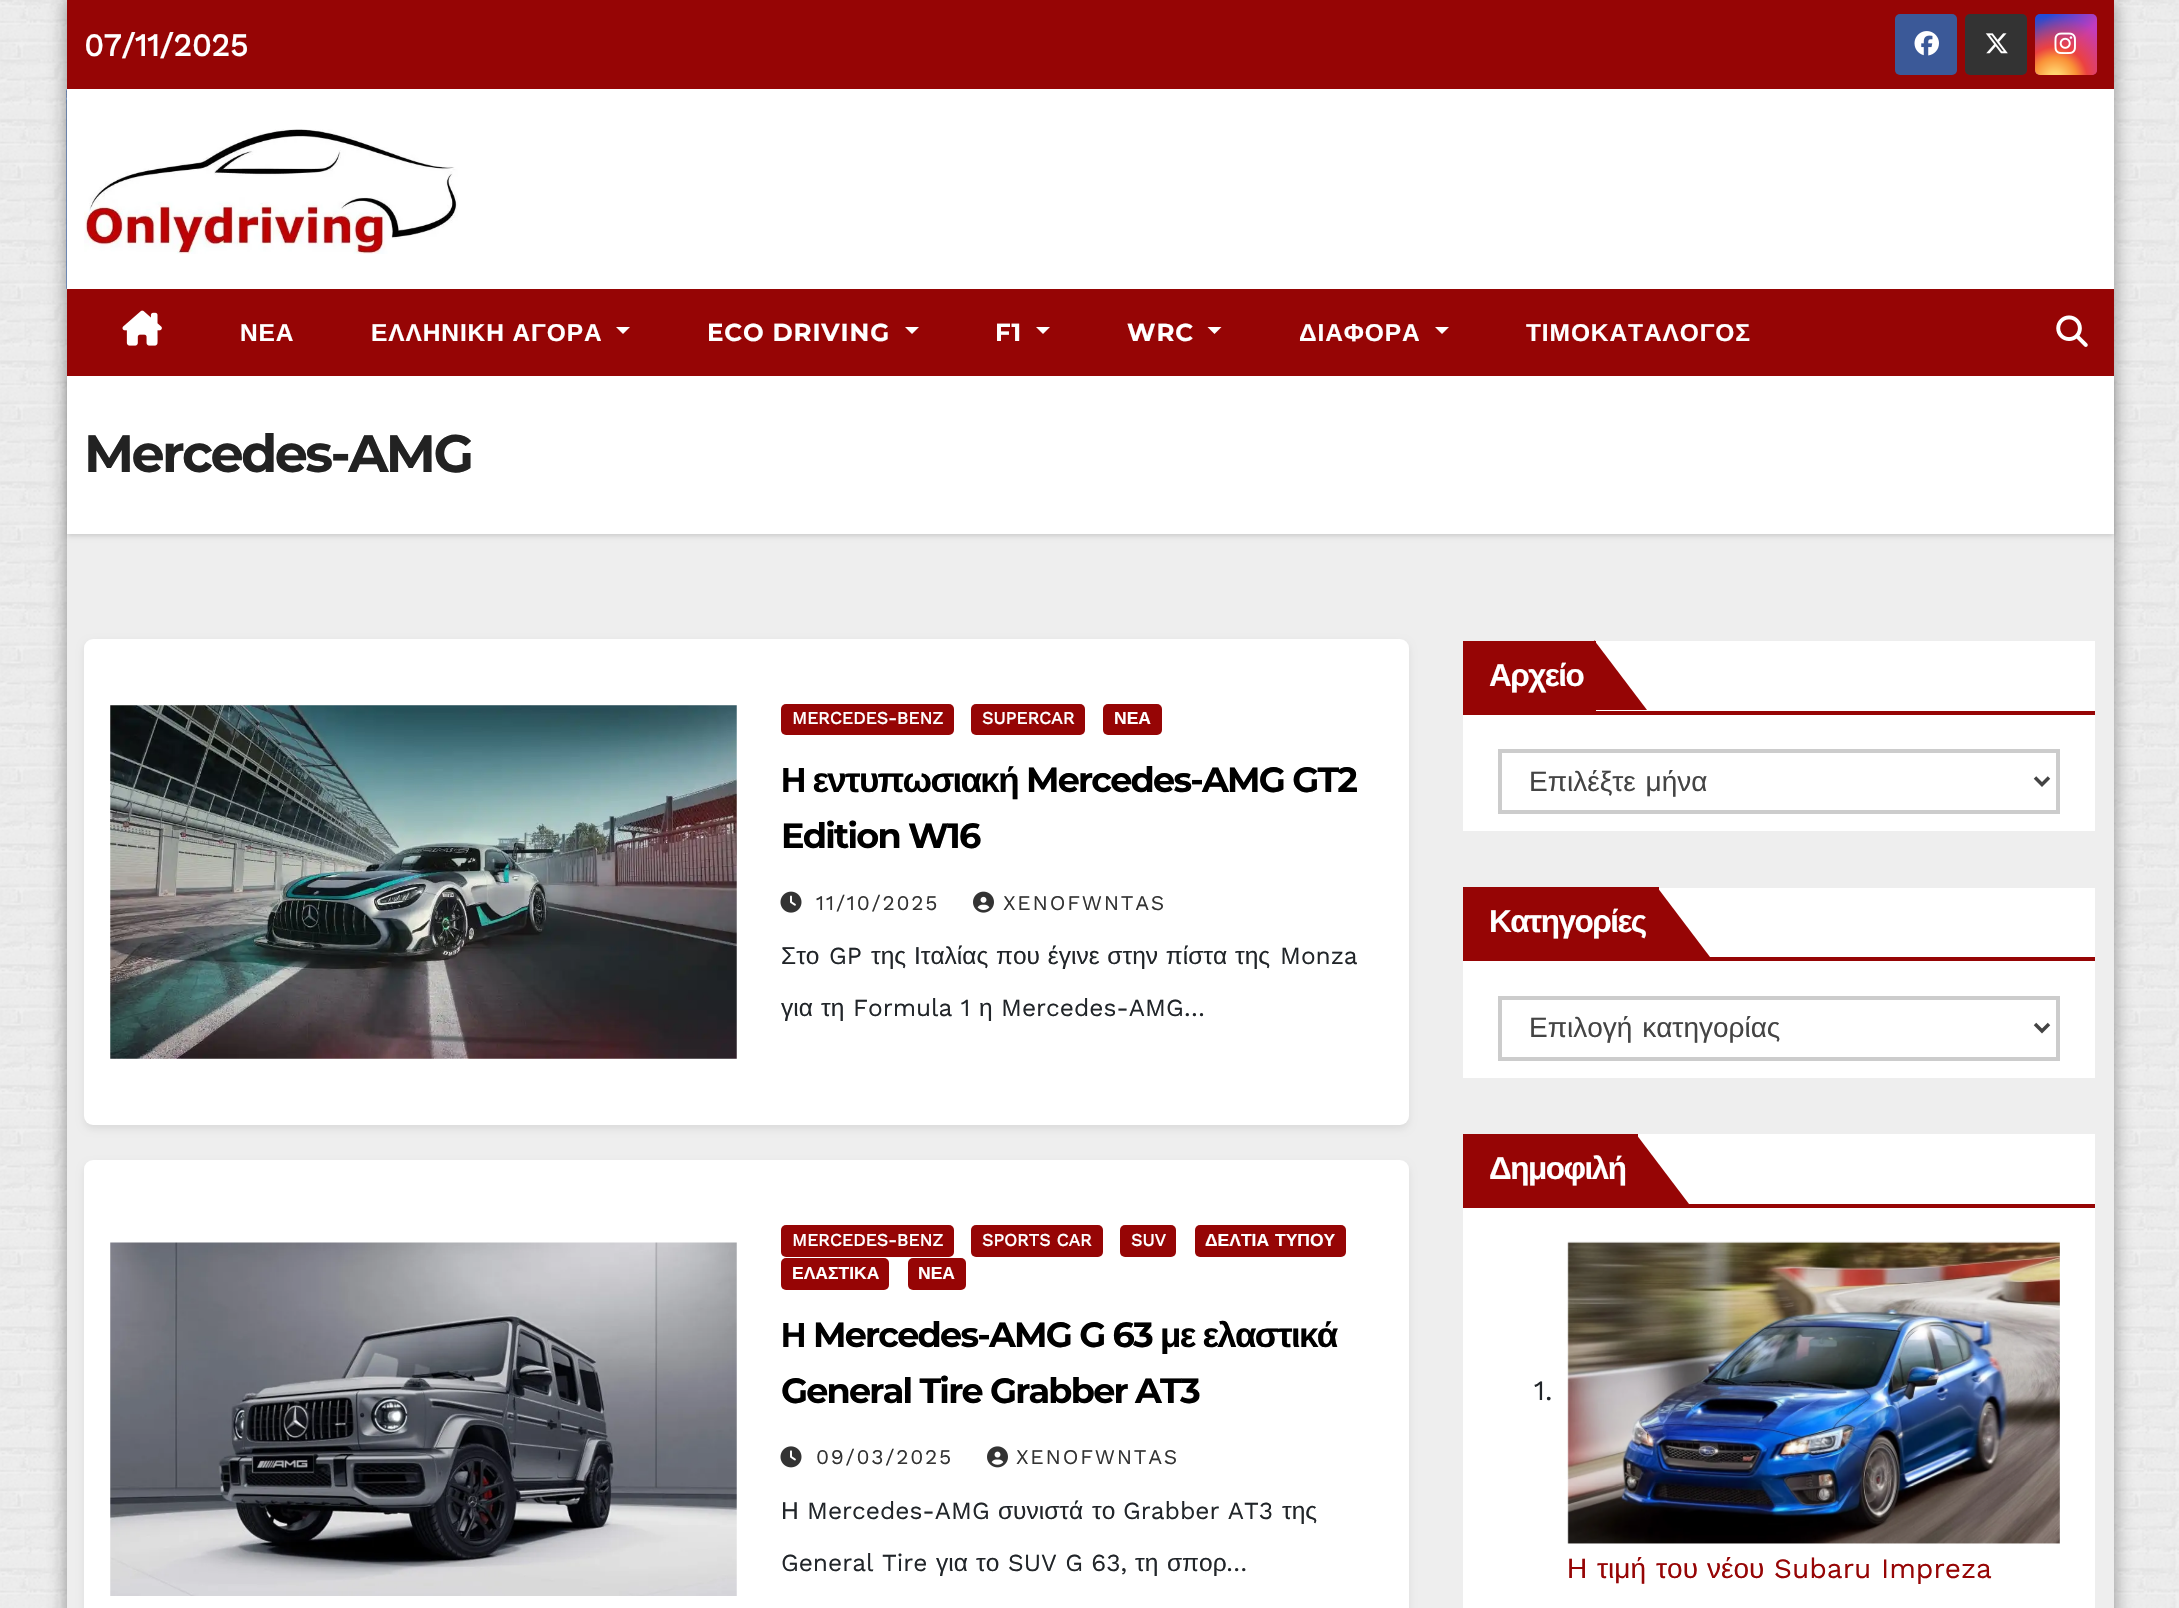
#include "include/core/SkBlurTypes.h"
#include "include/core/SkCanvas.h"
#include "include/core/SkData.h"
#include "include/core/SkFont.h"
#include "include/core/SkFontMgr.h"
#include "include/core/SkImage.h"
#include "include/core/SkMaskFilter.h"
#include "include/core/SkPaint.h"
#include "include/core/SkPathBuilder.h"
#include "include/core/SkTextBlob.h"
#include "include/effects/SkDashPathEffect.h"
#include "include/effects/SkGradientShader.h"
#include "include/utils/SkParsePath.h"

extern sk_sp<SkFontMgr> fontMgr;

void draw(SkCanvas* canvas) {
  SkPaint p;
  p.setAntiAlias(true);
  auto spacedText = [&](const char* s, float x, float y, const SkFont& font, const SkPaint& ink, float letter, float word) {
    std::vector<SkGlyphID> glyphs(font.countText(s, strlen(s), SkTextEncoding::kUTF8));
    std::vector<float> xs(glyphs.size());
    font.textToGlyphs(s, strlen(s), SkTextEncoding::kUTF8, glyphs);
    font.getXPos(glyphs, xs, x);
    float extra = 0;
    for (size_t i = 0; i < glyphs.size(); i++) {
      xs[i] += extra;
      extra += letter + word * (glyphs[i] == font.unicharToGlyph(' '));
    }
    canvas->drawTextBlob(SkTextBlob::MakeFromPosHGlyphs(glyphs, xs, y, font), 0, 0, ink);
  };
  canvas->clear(SK_ColorWHITE);
  canvas->drawImageRect(SkImages::DeferredFromEncodedData(SkData::MakeFromFileName("images/1.png")), SkRect::MakeLTRB(0, 0, 2179, 1608), SkSamplingOptions());
  p.setColor(SkColorSetARGB(128, 48, 48, 48));
  p.setMaskFilter(SkMaskFilter::MakeBlur(kNormal_SkBlurStyle, 9));
  canvas->drawRect(SkRect::MakeLTRB(67, 0, 2114, 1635), p);
  p.setMaskFilter(nullptr);
  p.setColor(SkColorSetRGB(238, 238, 238));
  canvas->drawRect(SkRect::MakeLTRB(67, 534, 2114, 1608), p);
  p.setColor(SkColorSetRGB(150, 5, 5));
  canvas->drawRect(SkRect::MakeLTRB(67, 0, 2114, 89), p);
  p.setColor(SkColorSetRGB(59, 89, 152));
  canvas->drawRoundRect(SkRect::MakeLTRB(1895, 14, 1957, 75), 5, 5, p);
  canvas->drawImageRect(SkImages::DeferredFromEncodedData(SkData::MakeFromFileName("images/2.png")), SkRect::MakeLTRB(1914, 31, 1939, 56), SkSamplingOptions());
  p.setColor(SkColorSetRGB(51, 51, 51));
  canvas->drawRoundRect(SkRect::MakeLTRB(1965, 14, 2027, 75), 5, 5, p);
  canvas->drawImageRect(SkImages::DeferredFromEncodedData(SkData::MakeFromFileName("images/3.png")), SkRect::MakeLTRB(1985, 33, 2008, 54), SkSamplingOptions());
  {
    const SkColor colors[] = {SkColorSetRGB(35, 75, 215), SkColorSetRGB(195, 60, 190)};
    const float stops[] = {0.12f, 0.58f};
    const SkPoint ends[] = {{2035, 14}, {2097, 75}};
    p.setShader(SkGradientShader::MakeLinear(ends, colors, stops, 2, SkTileMode::kClamp));
    p.setAlpha(255);
  }
  canvas->drawRoundRect(SkRect::MakeLTRB(2035, 14, 2097, 75), 5, 5, p);
  {
    const SkColor colors[] = {SkColorSetRGB(255, 225, 125), SkColorSetRGB(255, 205, 105), SkColorSetRGB(250, 145, 55), SkColorSetRGB(235, 65, 65), SkColorSetARGB(0, 235, 65, 65)};
    const float stops[] = {0, 0.1f, 0.28f, 0.42f, 0.82f};
    p.setShader(SkGradientShader::MakeRadial({2055, 79}, 77, colors, stops, 5, SkTileMode::kClamp));
    p.setAlpha(255);
  }
  canvas->drawRoundRect(SkRect::MakeLTRB(2035, 14, 2097, 75), 5, 5, p);
  canvas->drawImageRect(SkImages::DeferredFromEncodedData(SkData::MakeFromFileName("images/4.png")), SkRect::MakeLTRB(2054, 32, 2076, 54), SkSamplingOptions());
  canvas->drawImageRect(SkImages::DeferredFromEncodedData(SkData::MakeFromFileName("images/5.png")), SkRect::MakeLTRB(66, 89, 67, 289), SkSamplingOptions());
  p.setShader(nullptr);
  p.setColor(SK_ColorWHITE);
  canvas->drawRect(SkRect::MakeLTRB(67, 89, 2114, 289), p);
  canvas->drawImageRect(SkImages::DeferredFromEncodedData(SkData::MakeFromFileName("images/6.png")), SkRect::MakeLTRB(84, 129, 458, 254), SkSamplingOptions());
  p.setColor(SkColorSetARGB(38, 0, 0, 0));
  p.setMaskFilter(SkMaskFilter::MakeBlur(kNormal_SkBlurStyle, 2.5f));
  canvas->drawRect(SkRect::MakeLTRB(67, 378, 2114, 536), p);
  p.setMaskFilter(nullptr);
  p.setColor(SkColorSetRGB(150, 5, 5));
  canvas->drawRect(SkRect::MakeLTRB(67, 289, 2114, 376), p);
  canvas->drawImageRect(SkImages::DeferredFromEncodedData(SkData::MakeFromFileName("images/7.png")), SkRect::MakeLTRB(122, 310, 162, 346), SkSamplingOptions());
  p.setColor(SK_ColorWHITE);
  canvas->drawPath(SkPathBuilder().moveTo(616, 327).lineTo(630, 327).lineTo(623, 334).close().detach(), p);
  canvas->drawPath(SkPathBuilder().moveTo(905, 327).lineTo(919, 327).lineTo(912, 334).close().detach(), p);
  canvas->drawPath(SkPathBuilder().moveTo(1036, 327).lineTo(1050, 327).lineTo(1043, 334).close().detach(), p);
  canvas->drawPath(SkPathBuilder().moveTo(1207.5f, 327).lineTo(1221.5f, 327).lineTo(1214.5f, 334).close().detach(), p);
  canvas->drawPath(SkPathBuilder().moveTo(1435, 327).lineTo(1449, 327).lineTo(1442, 334).close().detach(), p);
  canvas->drawImageRect(SkImages::DeferredFromEncodedData(SkData::MakeFromFileName("images/8.png")), SkRect::MakeLTRB(2056, 315, 2088, 347), SkSamplingOptions());
  canvas->drawRect(SkRect::MakeLTRB(67, 376, 2114, 534), p);
  p.setColor(SkColorSetARGB(20, 0, 0, 0));
  p.setMaskFilter(SkMaskFilter::MakeBlur(kNormal_SkBlurStyle, 3.5f));
  canvas->drawRoundRect(SkRect::MakeLTRB(84, 642, 1409, 1129), 9, 9, p);
  p.setMaskFilter(nullptr);
  p.setColor(SK_ColorWHITE);
  canvas->drawRoundRect(SkRect::MakeLTRB(84, 639, 1409, 1125), 9, 9, p);
  canvas->drawImageRect(SkImages::DeferredFromEncodedData(SkData::MakeFromFileName("images/9.png")), SkRect::MakeLTRB(110, 705, 737, 1059), SkSamplingOptions());
  p.setColor(SkColorSetRGB(150, 5, 5));
  canvas->drawRoundRect(SkRect::MakeLTRB(781, 704, 954, 735), 5, 5, p);
  canvas->drawRoundRect(SkRect::MakeLTRB(971, 704, 1085, 735), 5, 5, p);
  canvas->drawRoundRect(SkRect::MakeLTRB(1103, 704, 1162, 735), 5, 5, p);
  canvas->drawImageRect(SkImages::DeferredFromEncodedData(SkData::MakeFromFileName("images/10.png")), SkRect::MakeLTRB(780, 891, 802, 913), SkSamplingOptions());
  canvas->drawImageRect(SkImages::DeferredFromEncodedData(SkData::MakeFromFileName("images/11.png")), SkRect::MakeLTRB(973, 891, 994, 913), SkSamplingOptions());
  p.setColor(SkColorSetARGB(20, 0, 0, 0));
  p.setMaskFilter(SkMaskFilter::MakeBlur(kNormal_SkBlurStyle, 3.5f));
  canvas->drawRoundRect(SkRect::MakeLTRB(84, 1164, 1409, 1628), 9, 9, p);
  p.setMaskFilter(nullptr);
  p.setColor(SK_ColorWHITE);
  canvas->drawRoundRect(SkRect::MakeLTRB(84, 1160, 1409, 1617), 9, 9, p);
  canvas->drawImageRect(SkImages::DeferredFromEncodedData(SkData::MakeFromFileName("images/12.png")), SkRect::MakeLTRB(110, 1242, 737, 1596), SkSamplingOptions());
  p.setColor(SkColorSetRGB(150, 5, 5));
  canvas->drawRoundRect(SkRect::MakeLTRB(781, 1225, 954, 1257), 5, 5, p);
  canvas->drawRoundRect(SkRect::MakeLTRB(971, 1225, 1103, 1257), 5, 5, p);
  canvas->drawRoundRect(SkRect::MakeLTRB(1120, 1225, 1176, 1257), 5, 5, p);
  canvas->drawRoundRect(SkRect::MakeLTRB(1195, 1225, 1346, 1257), 5, 5, p);
  canvas->drawRoundRect(SkRect::MakeLTRB(781, 1258, 889, 1290), 5, 5, p);
  canvas->drawRoundRect(SkRect::MakeLTRB(908, 1258, 966, 1290), 5, 5, p);
  canvas->drawImageRect(SkImages::DeferredFromEncodedData(SkData::MakeFromFileName("images/13.png")), SkRect::MakeLTRB(780, 1446, 802, 1468), SkSamplingOptions());
  canvas->drawImageRect(SkImages::DeferredFromEncodedData(SkData::MakeFromFileName("images/14.png")), SkRect::MakeLTRB(987, 1446, 1008, 1468), SkSamplingOptions());
  p.setColor(SK_ColorWHITE);
  canvas->drawRect(SkRect::MakeLTRB(1463, 641, 2095, 831), p);
  p.setColor(SkColorSetRGB(150, 5, 5));
  canvas->drawRect(SkRect::MakeLTRB(1463, 711, 2095, 715), p);
  canvas->drawRect(SkRect::MakeLTRB(1463, 641, 1596, 711), p);
  canvas->drawPath(SkPathBuilder().moveTo(1594, 710).lineTo(1594, 640).lineTo(1647, 710).close().detach(), p);
  p.setStyle(SkPaint::kStroke_Style);
  p.setStrokeWidth(4);
  p.setColor(SkColorSetRGB(204, 204, 204));
  canvas->drawRect(SkRect::MakeLTRB(1500, 751, 2058, 812), p);
  p.setStrokeWidth(3.5f);
  p.setColor(SkColorSetRGB(68, 68, 68));
  canvas->drawPath(SkPathBuilder().moveTo(2035, 777.5f).lineTo(2042, 784.5f).lineTo(2049, 777.5f).detach(), p);
  p.setStyle(SkPaint::kFill_Style);
  p.setColor(SK_ColorWHITE);
  canvas->drawRect(SkRect::MakeLTRB(1463, 888, 2095, 1078), p);
  p.setColor(SkColorSetRGB(150, 5, 5));
  canvas->drawRect(SkRect::MakeLTRB(1463, 957, 2095, 961), p);
  canvas->drawRect(SkRect::MakeLTRB(1463, 887, 1659, 957), p);
  canvas->drawPath(SkPathBuilder().moveTo(1657, 957).lineTo(1657, 887).lineTo(1710, 957).close().detach(), p);
  p.setStyle(SkPaint::kStroke_Style);
  p.setStrokeWidth(4);
  p.setColor(SkColorSetRGB(204, 204, 204));
  canvas->drawRect(SkRect::MakeLTRB(1500, 998, 2058, 1059), p);
  p.setStrokeWidth(3.5f);
  p.setColor(SkColorSetRGB(68, 68, 68));
  canvas->drawPath(SkPathBuilder().moveTo(2035, 1024).lineTo(2042, 1031).lineTo(2049, 1024).detach(), p);
  p.setStyle(SkPaint::kFill_Style);
  p.setColor(SK_ColorWHITE);
  canvas->drawRect(SkRect::MakeLTRB(1463, 1134, 2095, 1608), p);
  p.setColor(SkColorSetRGB(150, 5, 5));
  canvas->drawRect(SkRect::MakeLTRB(1463, 1204, 2095, 1208), p);
  canvas->drawRect(SkRect::MakeLTRB(1463, 1134, 1638, 1204), p);
  canvas->drawPath(SkPathBuilder().moveTo(1636, 1204).lineTo(1636, 1134).lineTo(1689, 1204).close().detach(), p);
  canvas->drawImageRect(SkImages::DeferredFromEncodedData(SkData::MakeFromFileName("images/15.png")), SkRect::MakeLTRB(1567, 1241, 2060, 1544), SkSamplingOptions());
  SkFont font1(fontMgr->matchFamilyStyle("Work Sans", SkFontStyle::Bold()), 31.5f);
  font1.setSubpixel(true);
  p.setColor(SK_ColorWHITE);
  canvas->drawString("07/11/2025", 84, 56, font1, p);
  SkFont font2(fontMgr->matchFamilyStyle("Liberation Sans", SkFontStyle::Bold()), 24.5f);
  font2.setSubpixel(true);
  spacedText("ΝΕΑ", 240, 341, font2, p, 0.9f, 0);
  spacedText("ΕΛΛΗΝΙΚΗ ΑΓΟΡΑ", 371, 341, font2, p, 0.9f, 0);
  SkFont font3(fontMgr->matchFamilyStyle("Montserrat", SkFontStyle::Bold()), 24.5f);
  font3.setSubpixel(true);
  spacedText("ECO DRIVING", 707, 341, font3, p, 0.9f, 0);
  spacedText("F1", 995, 341, font3, p, 0.9f, 0);
  spacedText("WRC", 1127, 341, font3, p, 0.9f, 0);
  spacedText("ΔΙΑΦΟΡΑ", 1299, 341, font2, p, 0.9f, 0);
  spacedText("ΤΙΜΟΚΑΤΑΛΟΓΟΣ", 1526, 341, font2, p, 0.9f, 0);
  SkFont font4(fontMgr->matchFamilyStyle("Montserrat", SkFontStyle::Bold()), 52.5f);
  font4.setSubpixel(true);
  p.setColor(SkColorSetRGB(34, 34, 34));
  spacedText("Mercedes-AMG", 84, 472, font4, p, -2.6f, 0);
  SkFont font5(fontMgr->matchFamilyStyle("Work Sans", SkFontStyle::Bold()), 17.5f);
  font5.setSubpixel(true);
  p.setColor(SK_ColorWHITE);
  canvas->drawString("MERCEDES-BENZ", 792, 724, font5, p);
  canvas->drawString("SUPERCAR", 982, 724, font5, p);
  SkFont font6(fontMgr->matchFamilyStyle("Liberation Sans", SkFontStyle::Bold()), 17.5f);
  font6.setSubpixel(true);
  canvas->drawString("ΝΕΑ", 1114, 724, font6, p);
  SkFont font7(fontMgr->matchFamilyStyle("Liberation Sans", SkFontStyle::Bold()), 35);
  font7.setSubpixel(true);
  p.setColor(SK_ColorBLACK);
  spacedText("Η εντυπωσιακή", 781, 792, font7, p, -1.75f, 0);
  SkFont font8(fontMgr->matchFamilyStyle("Montserrat", SkFontStyle::Bold()), 35);
  font8.setSubpixel(true);
  spacedText("Mercedes-AMG GT2", 1026, 792, font8, p, -1.75f, 0);
  spacedText("Edition W16", 781, 848, font8, p, -1.75f, 0);
  SkFont font9(fontMgr->matchFamilyStyle("Work Sans", SkFontStyle::Normal()), 21);
  font9.setSubpixel(true);
  p.setColor(SkColorSetRGB(51, 51, 51));
  spacedText("11/10/2025", 816, 910, font9, p, 1.75f, 0);
  spacedText("XENOFWNTAS", 1003, 910, font9, p, 1.75f, 0);
  SkFont font10(fontMgr->matchFamilyStyle("Liberation Sans", SkFontStyle::Normal()), 24.5f);
  font10.setSubpixel(true);
  p.setColor(SkColorSetRGB(33, 37, 41));
  canvas->drawString("Στο", 781, 964, font10, p);
  SkFont font11(fontMgr->matchFamilyStyle("Work Sans", SkFontStyle::Normal()), 24.5f);
  font11.setSubpixel(true);
  canvas->drawString("GP", 829, 964, font11, p);
  spacedText("της Ιταλίας που έγινε στην πίστα της", 871, 964, font10, p, 0, 1);
  canvas->drawString("Monza", 1280, 964, font11, p);
  canvas->drawString("για", 781, 1016, font10, p);
  canvas->drawString("τη", 821, 1016, font10, p);
  canvas->drawString("Formula 1", 853, 1016, font11, p);
  canvas->drawString("η", 979, 1016, font10, p);
  canvas->drawString("Mercedes-AMG…", 1001, 1016, font11, p);
  p.setColor(SK_ColorWHITE);
  canvas->drawString("MERCEDES-BENZ", 792, 1246, font5, p);
  canvas->drawString("SPORTS CAR", 982, 1246, font5, p);
  canvas->drawString("SUV", 1131, 1246, font5, p);
  spacedText("ΔΕΛΤΙΑ ΤΥΠΟΥ", 1205, 1246, font6, p, 0, 1);
  canvas->drawString("ΕΛΑΣΤΙΚΑ", 792, 1279, font6, p);
  canvas->drawString("ΝΕΑ", 918, 1279, font6, p);
  p.setColor(SK_ColorBLACK);
  spacedText("Η", 781, 1347, font7, p, -1.75f, 0);
  spacedText("Mercedes-AMG G 63", 813, 1347, font8, p, -1.75f, 0);
  spacedText("με ελαστικά", 1160, 1347, font7, p, -1.75f, 0);
  spacedText("General Tire Grabber AT3", 781, 1403, font8, p, -1.75f, 0);
  p.setColor(SkColorSetRGB(51, 51, 51));
  spacedText("09/03/2025", 816, 1464, font9, p, 1.75f, 0);
  spacedText("XENOFWNTAS", 1016, 1464, font9, p, 1.75f, 0);
  p.setColor(SkColorSetRGB(33, 37, 41));
  canvas->drawString("Η", 781, 1519, font10, p);
  canvas->drawString("Mercedes-AMG", 807, 1519, font11, p);
  canvas->drawString("συνιστά", 998, 1519, font10, p);
  canvas->drawString("το", 1092, 1519, font10, p);
  canvas->drawString("Grabber AT3", 1123, 1519, font11, p);
  canvas->drawString("της", 1282, 1519, font10, p);
  canvas->drawString("General Tire", 781, 1571, font11, p);
  canvas->drawString("για", 936, 1571, font10, p);
  canvas->drawString("το", 976, 1571, font10, p);
  canvas->drawString("SUV G 63,", 1008, 1571, font11, p);
  canvas->drawString("τη", 1135, 1571, font10, p);
  canvas->drawString("σπορ", 1167, 1571, font10, p);
  canvas->drawString("…", 1226, 1571, font11, p);
  SkFont font12(fontMgr->matchFamilyStyle("Liberation Sans", SkFontStyle::Bold()), 31.5f);
  font12.setSubpixel(true);
  p.setColor(SK_ColorWHITE);
  spacedText("Αρχείο", 1489, 686, font12, p, -1.5f, 0);
  SkFont font13(fontMgr->matchFamilyStyle("Liberation Sans", SkFontStyle::Normal()), 28);
  font13.setSubpixel(true);
  p.setColor(SkColorSetRGB(68, 68, 68));
  spacedText("Επιλέξτε μήνα", 1529, 791, font13, p, 0, 2);
  p.setColor(SK_ColorWHITE);
  spacedText("Κατηγορίες", 1489, 932, font12, p, -1.5f, 0);
  p.setColor(SkColorSetRGB(68, 68, 68));
  spacedText("Επιλογή κατηγορίας", 1529, 1037, font13, p, 0, 2);
  p.setColor(SK_ColorWHITE);
  spacedText("Δημοφιλή", 1489, 1179, font12, p, -1.5f, 0);
  SkFont font14(fontMgr->matchFamilyStyle("Work Sans", SkFontStyle::Normal()), 28);
  font14.setSubpixel(true);
  p.setColor(SkColorSetRGB(33, 37, 41));
  canvas->drawString("1.", 1534, 1400, font14, p);
  p.setColor(SkColorSetRGB(150, 5, 5));
  canvas->drawString("Η", 1567, 1578, font13, p);
  canvas->drawString("τιμή", 1597, 1578, font13, p);
  canvas->drawString("του", 1656, 1578, font13, p);
  canvas->drawString("νέου", 1707, 1578, font13, p);
  canvas->drawString("Subaru Impreza", 1774, 1578, font14, p);
}
